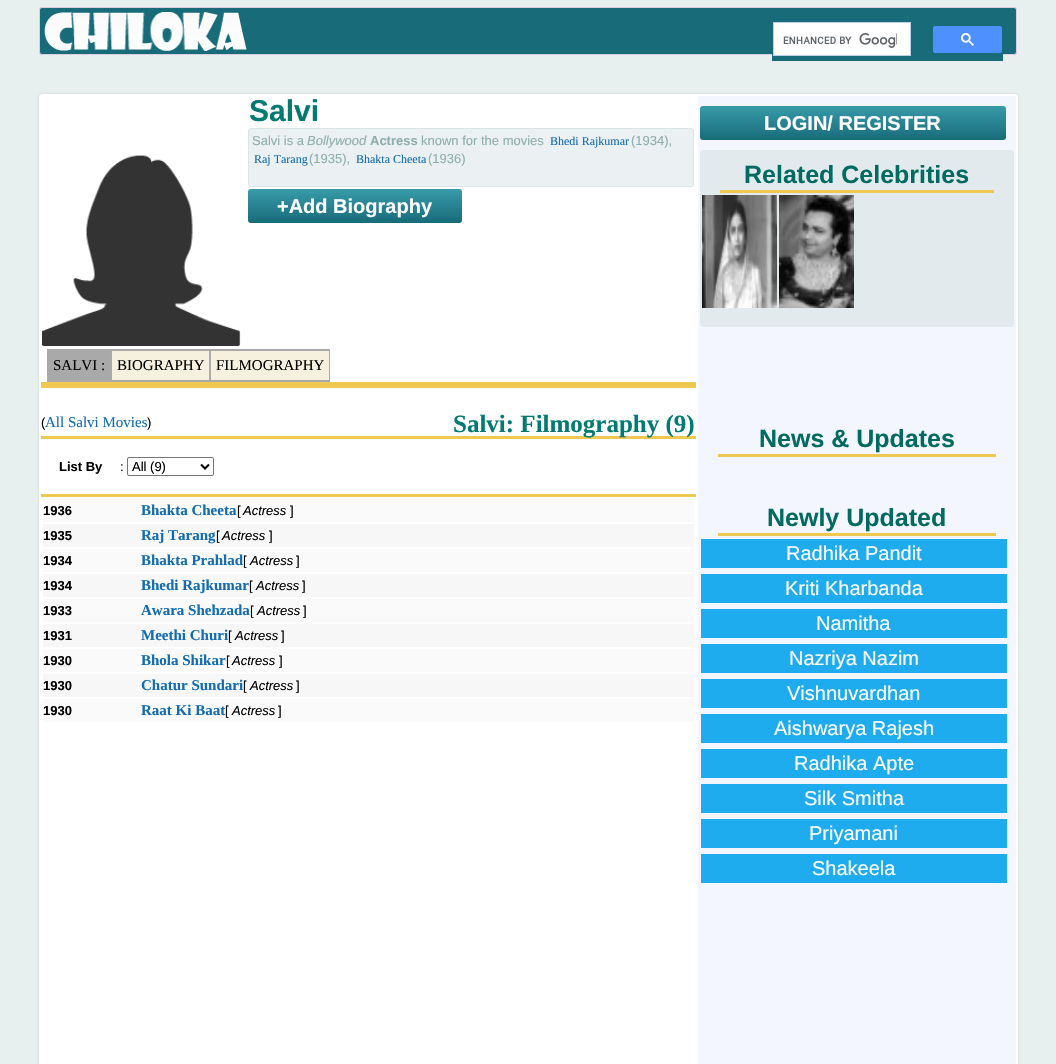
#include "include/core/SkBlurTypes.h"
#include "include/core/SkCanvas.h"
#include "include/core/SkData.h"
#include "include/core/SkFont.h"
#include "include/core/SkFontMgr.h"
#include "include/core/SkImage.h"
#include "include/core/SkMaskFilter.h"
#include "include/core/SkPaint.h"
#include "include/core/SkPathBuilder.h"
#include "include/core/SkTextBlob.h"
#include "include/effects/SkDashPathEffect.h"
#include "include/effects/SkGradientShader.h"
#include "include/utils/SkParsePath.h"

extern sk_sp<SkFontMgr> fontMgr;

void draw(SkCanvas* canvas) {
  SkPaint p;
  p.setAntiAlias(true);
  canvas->clear(SkColorSetRGB(231, 239, 239));
  p.setColor(SkColorSetRGB(24, 107, 121));
  canvas->drawRoundRect(SkRect::MakeLTRB(39.5f, 7.5f, 1016.5f, 54.5f), 2.5f, 2.5f, p);
  p.setStyle(SkPaint::kStroke_Style);
  p.setStrokeWidth(1);
  p.setColor(SkColorSetRGB(221, 204, 221));
  canvas->drawRoundRect(SkRect::MakeLTRB(39.5f, 7.5f, 1016.5f, 54.5f), 2.5f, 2.5f, p);
  canvas->drawImageRect(SkImages::DeferredFromEncodedData(SkData::MakeFromFileName("images/1.png")), SkRect::MakeLTRB(44, 12, 247, 51), SkSamplingOptions());
  p.setStyle(SkPaint::kFill_Style);
  p.setColor(SkColorSetRGB(24, 107, 121));
  canvas->drawRect(SkRect::MakeLTRB(772, 54, 1003, 61), p);
  p.setColor(SK_ColorWHITE);
  canvas->drawRect(SkRect::MakeLTRB(773.5f, 22.5f, 910.5f, 55.5f), p);
  p.setStyle(SkPaint::kStroke_Style);
  p.setColor(SkColorSetRGB(188, 205, 240));
  canvas->drawRect(SkRect::MakeLTRB(773.5f, 22.5f, 910.5f, 55.5f), p);
  canvas->drawImageRect(SkImages::DeferredFromEncodedData(SkData::MakeFromFileName("images/2.png")), SkRect::MakeLTRB(783, 33, 897, 48), SkSamplingOptions());
  p.setStyle(SkPaint::kFill_Style);
  p.setColor(SkColorSetRGB(77, 144, 254));
  canvas->drawRoundRect(SkRect::MakeLTRB(933.5f, 26.5f, 1001.5f, 52.5f), 1.5f, 1.5f, p);
  p.setStyle(SkPaint::kStroke_Style);
  canvas->drawRoundRect(SkRect::MakeLTRB(933.5f, 26.5f, 1001.5f, 52.5f), 1.5f, 1.5f, p);
  canvas->drawImageRect(SkImages::DeferredFromEncodedData(SkData::MakeFromFileName("images/3.png")), SkRect::MakeLTRB(961, 33, 974, 46), SkSamplingOptions());
  p.setStyle(SkPaint::kFill_Style);
  p.setColor(SkColorSetRGB(219, 226, 226));
  p.setMaskFilter(SkMaskFilter::MakeBlur(kNormal_SkBlurStyle, 1));
  canvas->drawRoundRect(SkRect::MakeLTRB(38, 93, 1019, 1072), 5, 5, p);
  p.setMaskFilter(nullptr);
  p.setColor(SK_ColorWHITE);
  canvas->drawRoundRect(SkRect::MakeLTRB(39, 94, 1018, 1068), 4, 4, p);
  canvas->drawImageRect(SkImages::DeferredFromEncodedData(SkData::MakeFromFileName("images/4.png")), SkRect::MakeLTRB(42, 155, 241, 346), SkSamplingOptions());
  p.setColor(SkColorSetRGB(235, 240, 242));
  canvas->drawRoundRect(SkRect::MakeLTRB(248.5f, 128.5f, 693.5f, 186.5f), 2.5f, 2.5f, p);
  p.setStyle(SkPaint::kStroke_Style);
  p.setColor(SkColorSetRGB(218, 229, 229));
  canvas->drawRoundRect(SkRect::MakeLTRB(248.5f, 128.5f, 693.5f, 186.5f), 2.5f, 2.5f, p);
  p.setStyle(SkPaint::kFill_Style);
  {
    const SkColor colors[] = {SkColorSetRGB(56, 155, 169), SkColorSetRGB(24, 107, 121)};
    const float stops[] = {0, 1};
    const SkPoint ends[] = {{355, 189}, {355, 223}};
    p.setShader(SkGradientShader::MakeLinear(ends, colors, stops, 2, SkTileMode::kClamp));
    p.setAlpha(255);
  }
  canvas->drawRoundRect(SkRect::MakeLTRB(248, 189, 462, 223), 3, 3, p);
  p.setShader(nullptr);
  p.setColor(SkColorSetRGB(169, 169, 169));
  canvas->drawRect(SkRect::MakeLTRB(48, 351, 110, 380), p);
  p.setColor(SkColorSetRGB(170, 170, 170));
  canvas->drawRect(SkRect::MakeLTRB(47, 349, 330, 351), p);
  canvas->drawRect(SkRect::MakeLTRB(110, 349, 111, 382), p);
  canvas->drawRect(SkRect::MakeLTRB(47, 380, 111, 382), p);
  canvas->drawRect(SkRect::MakeLTRB(47, 349, 48, 382), p);
  p.setColor(SkColorSetRGB(245, 241, 222));
  canvas->drawRect(SkRect::MakeLTRB(112, 351, 209, 380), p);
  p.setColor(SkColorSetRGB(170, 170, 170));
  canvas->drawRect(SkRect::MakeLTRB(209, 349, 210, 382), p);
  canvas->drawRect(SkRect::MakeLTRB(111, 380, 210, 382), p);
  canvas->drawRect(SkRect::MakeLTRB(111, 349, 112, 382), p);
  p.setColor(SkColorSetRGB(245, 241, 222));
  canvas->drawRect(SkRect::MakeLTRB(211, 351, 329, 380), p);
  p.setColor(SkColorSetRGB(170, 170, 170));
  canvas->drawRect(SkRect::MakeLTRB(329, 349, 330, 382), p);
  canvas->drawRect(SkRect::MakeLTRB(210, 380, 330, 382), p);
  canvas->drawRect(SkRect::MakeLTRB(210, 349, 211, 382), p);
  p.setColor(SkColorSetRGB(238, 200, 80));
  canvas->drawRect(SkRect::MakeLTRB(41, 382, 696, 388), p);
  canvas->drawRect(SkRect::MakeLTRB(41, 436, 696, 439), p);
  p.setStyle(SkPaint::kStroke_Style);
  p.setColor(SkColorSetRGB(118, 118, 118));
  canvas->drawRoundRect(SkRect::MakeLTRB(127.5f, 457.5f, 213.5f, 475.5f), 1.5f, 1.5f, p);
  p.setStrokeWidth(2);
  p.setColor(SK_ColorBLACK);
  canvas->drawPath(SkPathBuilder().moveTo(201, 464.5f).lineTo(205, 468.5f).lineTo(209, 464.5f).detach(), p);
  p.setStyle(SkPaint::kFill_Style);
  p.setColor(SkColorSetRGB(238, 200, 80));
  canvas->drawRect(SkRect::MakeLTRB(41, 494, 696, 497), p);
  p.setColor(SkColorSetRGB(250, 250, 250));
  canvas->drawRect(SkRect::MakeLTRB(43, 499, 694, 522), p);
  p.setColor(SkColorSetRGB(247, 247, 247));
  canvas->drawRect(SkRect::MakeLTRB(43, 524, 694, 547), p);
  p.setColor(SkColorSetRGB(250, 250, 250));
  canvas->drawRect(SkRect::MakeLTRB(43, 549, 694, 572), p);
  p.setColor(SkColorSetRGB(247, 247, 247));
  canvas->drawRect(SkRect::MakeLTRB(43, 574, 694, 597), p);
  p.setColor(SkColorSetRGB(250, 250, 250));
  canvas->drawRect(SkRect::MakeLTRB(43, 599, 694, 622), p);
  p.setColor(SkColorSetRGB(247, 247, 247));
  canvas->drawRect(SkRect::MakeLTRB(43, 624, 694, 647), p);
  p.setColor(SkColorSetRGB(250, 250, 250));
  canvas->drawRect(SkRect::MakeLTRB(43, 649, 694, 672), p);
  p.setColor(SkColorSetRGB(247, 247, 247));
  canvas->drawRect(SkRect::MakeLTRB(43, 674, 694, 697), p);
  p.setColor(SkColorSetRGB(250, 250, 250));
  canvas->drawRect(SkRect::MakeLTRB(43, 699, 694, 722), p);
  p.setColor(SkColorSetRGB(244, 246, 255));
  canvas->drawRect(SkRect::MakeLTRB(698, 96, 1016, 1064), p);
  {
    const SkColor colors[] = {SkColorSetRGB(56, 155, 169), SkColorSetRGB(24, 107, 121)};
    const float stops[] = {0, 1};
    const SkPoint ends[] = {{853, 106}, {853, 140}};
    p.setShader(SkGradientShader::MakeLinear(ends, colors, stops, 2, SkTileMode::kClamp));
    p.setAlpha(255);
  }
  canvas->drawRoundRect(SkRect::MakeLTRB(700, 106, 1006, 140), 3, 3, p);
  p.setShader(nullptr);
  p.setColor(SkColorSetRGB(226, 234, 237));
  canvas->drawRoundRect(SkRect::MakeLTRB(700, 150, 1014, 327), 3, 3, p);
  p.setColor(SkColorSetRGB(238, 200, 80));
  canvas->drawRect(SkRect::MakeLTRB(720, 190, 994, 193), p);
  canvas->drawImageRect(SkImages::DeferredFromEncodedData(SkData::MakeFromFileName("images/5.png")), SkRect::MakeLTRB(702, 195, 777, 308), SkSamplingOptions());
  canvas->drawImageRect(SkImages::DeferredFromEncodedData(SkData::MakeFromFileName("images/6.png")), SkRect::MakeLTRB(779, 195, 854, 308), SkSamplingOptions());
  canvas->drawRect(SkRect::MakeLTRB(718, 454, 996, 457), p);
  canvas->drawRect(SkRect::MakeLTRB(718, 533, 996, 536), p);
  p.setColor(SkColorSetRGB(30, 172, 238));
  canvas->drawRect(SkRect::MakeLTRB(701, 539, 1007, 568), p);
  canvas->drawRect(SkRect::MakeLTRB(701, 574, 1007, 603), p);
  canvas->drawRect(SkRect::MakeLTRB(701, 609, 1007, 638), p);
  canvas->drawRect(SkRect::MakeLTRB(701, 644, 1007, 673), p);
  canvas->drawRect(SkRect::MakeLTRB(701, 679, 1007, 708), p);
  canvas->drawRect(SkRect::MakeLTRB(701, 714, 1007, 743), p);
  canvas->drawRect(SkRect::MakeLTRB(701, 749, 1007, 778), p);
  canvas->drawRect(SkRect::MakeLTRB(701, 784, 1007, 813), p);
  canvas->drawRect(SkRect::MakeLTRB(701, 819, 1007, 848), p);
  canvas->drawRect(SkRect::MakeLTRB(701, 854, 1007, 883), p);
  SkFont font1(fontMgr->matchFamilyStyle("Liberation Sans", SkFontStyle::Bold()), 30);
  font1.setSubpixel(true);
  p.setColor(SkColorSetRGB(1, 122, 113));
  canvas->drawString("Salvi", 249, 121, font1, p);
  SkFont font2(fontMgr->matchFamilyStyle("Liberation Sans", SkFontStyle::Normal()), 13);
  font2.setSubpixel(true);
  p.setColor(SkColorSetRGB(144, 174, 173));
  canvas->drawString("Salvi is a", 252, 145, font2, p);
  SkFont font3(fontMgr->matchFamilyStyle("Liberation Sans", SkFontStyle::Italic()), 13);
  font3.setSubpixel(true);
  canvas->drawString("Bollywood", 307, 145, font3, p);
  SkFont font4(fontMgr->matchFamilyStyle("Liberation Sans", SkFontStyle::Bold()), 13);
  font4.setSubpixel(true);
  canvas->drawString("Actress", 370, 145, font4, p);
  canvas->drawString("known for the movies", 421, 145, font2, p);
  SkFont font5(fontMgr->matchFamilyStyle("Liberation Serif", SkFontStyle::Normal()), 12);
  font5.setSubpixel(true);
  p.setColor(SkColorSetRGB(19, 108, 178));
  canvas->drawString("Bhedi Rajkumar", 550, 145, font5, p);
  p.setColor(SkColorSetRGB(144, 174, 173));
  canvas->drawString("(1934),", 631, 145, font2, p);
  p.setColor(SkColorSetRGB(19, 108, 178));
  canvas->drawString("Raj Tarang", 254, 163, font5, p);
  p.setColor(SkColorSetRGB(144, 174, 173));
  canvas->drawString("(1935),", 309, 163, font2, p);
  p.setColor(SkColorSetRGB(19, 108, 178));
  canvas->drawString("Bhakta Cheeta", 356, 163, font5, p);
  p.setColor(SkColorSetRGB(144, 174, 173));
  canvas->drawString("(1936)", 428, 163, font2, p);
  SkFont font6(fontMgr->matchFamilyStyle("Liberation Sans", SkFontStyle::Bold()), 20);
  font6.setSubpixel(true);
  p.setColor(SK_ColorWHITE);
  canvas->drawString("+Add Biography", 277, 213, font6, p);
  SkFont font7(fontMgr->matchFamilyStyle("Liberation Serif", SkFontStyle::Normal()), 15);
  font7.setSubpixel(true);
  p.setColor(SK_ColorBLACK);
  canvas->drawString("SALVI :", 53, 370, font7, p);
  canvas->drawString("BIOGRAPHY", 117, 370, font7, p);
  canvas->drawString("FILMOGRAPHY", 216, 370, font7, p);
  canvas->drawString("(", 41, 427, font2, p);
  p.setColor(SkColorSetRGB(19, 108, 178));
  canvas->drawString("All Salvi Movies", 45, 427, font7, p);
  p.setColor(SK_ColorBLACK);
  canvas->drawString(")", 147, 427, font2, p);
  SkFont font8(fontMgr->matchFamilyStyle("Liberation Serif", SkFontStyle::Bold()), 25);
  font8.setSubpixel(true);
  p.setColor(SkColorSetRGB(1, 122, 113));
  canvas->drawString("Salvi: Filmography (9)", 453, 432, font8, p);
  p.setColor(SK_ColorBLACK);
  canvas->drawString("List By", 59, 471, font4, p);
  canvas->drawString(":", 120, 471, font2, p);
  canvas->drawString("All (9)", 132, 471, font2, p);
  canvas->drawString("1936", 43, 515, font4, p);
  SkFont font9(fontMgr->matchFamilyStyle("Liberation Serif", SkFontStyle::Bold()), 15);
  font9.setSubpixel(true);
  p.setColor(SkColorSetRGB(19, 108, 178));
  canvas->drawString("Bhakta Cheeta", 141, 515, font9, p);
  p.setColor(SK_ColorBLACK);
  canvas->drawString("[", 237, 515, font2, p);
  canvas->drawString("Actress", 243, 515, font3, p);
  canvas->drawString("]", 290, 515, font2, p);
  canvas->drawString("1935", 43, 540, font4, p);
  p.setColor(SkColorSetRGB(19, 108, 178));
  canvas->drawString("Raj Tarang", 141, 540, font9, p);
  p.setColor(SK_ColorBLACK);
  canvas->drawString("[", 216, 540, font2, p);
  canvas->drawString("Actress", 222, 540, font3, p);
  canvas->drawString("]", 269, 540, font2, p);
  canvas->drawString("1934", 43, 565, font4, p);
  p.setColor(SkColorSetRGB(19, 108, 178));
  canvas->drawString("Bhakta Prahlad", 141, 565, font9, p);
  p.setColor(SK_ColorBLACK);
  canvas->drawString("[", 243, 565, font2, p);
  canvas->drawString("Actress", 250, 565, font3, p);
  canvas->drawString("]", 296, 565, font2, p);
  canvas->drawString("1934", 43, 590, font4, p);
  p.setColor(SkColorSetRGB(19, 108, 178));
  canvas->drawString("Bhedi Rajkumar", 141, 590, font9, p);
  p.setColor(SK_ColorBLACK);
  canvas->drawString("[", 249, 590, font2, p);
  canvas->drawString("Actress", 256, 590, font3, p);
  canvas->drawString("]", 302, 590, font2, p);
  canvas->drawString("1933", 43, 615, font4, p);
  p.setColor(SkColorSetRGB(19, 108, 178));
  canvas->drawString("Awara Shehzada", 141, 615, font9, p);
  p.setColor(SK_ColorBLACK);
  canvas->drawString("[", 250, 615, font2, p);
  canvas->drawString("Actress", 257, 615, font3, p);
  canvas->drawString("]", 303, 615, font2, p);
  canvas->drawString("1931", 43, 640, font4, p);
  p.setColor(SkColorSetRGB(19, 108, 178));
  canvas->drawString("Meethi Churi", 141, 640, font9, p);
  p.setColor(SK_ColorBLACK);
  canvas->drawString("[", 228, 640, font2, p);
  canvas->drawString("Actress", 235, 640, font3, p);
  canvas->drawString("]", 281, 640, font2, p);
  canvas->drawString("1930", 43, 665, font4, p);
  p.setColor(SkColorSetRGB(19, 108, 178));
  canvas->drawString("Bhola Shikar", 141, 665, font9, p);
  p.setColor(SK_ColorBLACK);
  canvas->drawString("[", 226, 665, font2, p);
  canvas->drawString("Actress", 232, 665, font3, p);
  canvas->drawString("]", 279, 665, font2, p);
  canvas->drawString("1930", 43, 690, font4, p);
  p.setColor(SkColorSetRGB(19, 108, 178));
  canvas->drawString("Chatur Sundari", 141, 690, font9, p);
  p.setColor(SK_ColorBLACK);
  canvas->drawString("[", 243, 690, font2, p);
  canvas->drawString("Actress", 250, 690, font3, p);
  canvas->drawString("]", 296, 690, font2, p);
  canvas->drawString("1930", 43, 715, font4, p);
  p.setColor(SkColorSetRGB(19, 108, 178));
  canvas->drawString("Raat Ki Baat", 141, 715, font9, p);
  p.setColor(SK_ColorBLACK);
  canvas->drawString("[", 225, 715, font2, p);
  canvas->drawString("Actress", 232, 715, font3, p);
  canvas->drawString("]", 278, 715, font2, p);
  p.setColor(SK_ColorWHITE);
  canvas->drawString("LOGIN/ REGISTER", 764, 130, font6, p);
  SkFont font10(fontMgr->matchFamilyStyle("Liberation Sans", SkFontStyle::Bold()), 25);
  font10.setSubpixel(true);
  p.setColor(SkColorSetRGB(1, 106, 97));
  canvas->drawString("Related Celebrities", 744, 183, font10, p);
  canvas->drawString("News & Updates", 759, 447, font10, p);
  canvas->drawString("Newly Updated", 767, 526, font10, p);
  SkFont font11(fontMgr->matchFamilyStyle("Liberation Sans", SkFontStyle::Normal()), 20);
  font11.setSubpixel(true);
  p.setColor(SK_ColorWHITE);
  canvas->drawString("Radhika Pandit", 786, 560, font11, p);
  canvas->drawString("Kriti Kharbanda", 785, 595, font11, p);
  canvas->drawString("Namitha", 816, 630, font11, p);
  canvas->drawString("Nazriya Nazim", 789, 665, font11, p);
  canvas->drawString("Vishnuvardhan", 787, 700, font11, p);
  canvas->drawString("Aishwarya Rajesh", 774, 735, font11, p);
  canvas->drawString("Radhika Apte", 794, 770, font11, p);
  canvas->drawString("Silk Smitha", 804, 805, font11, p);
  canvas->drawString("Priyamani", 809, 840, font11, p);
  canvas->drawString("Shakeela", 812, 875, font11, p);
}
